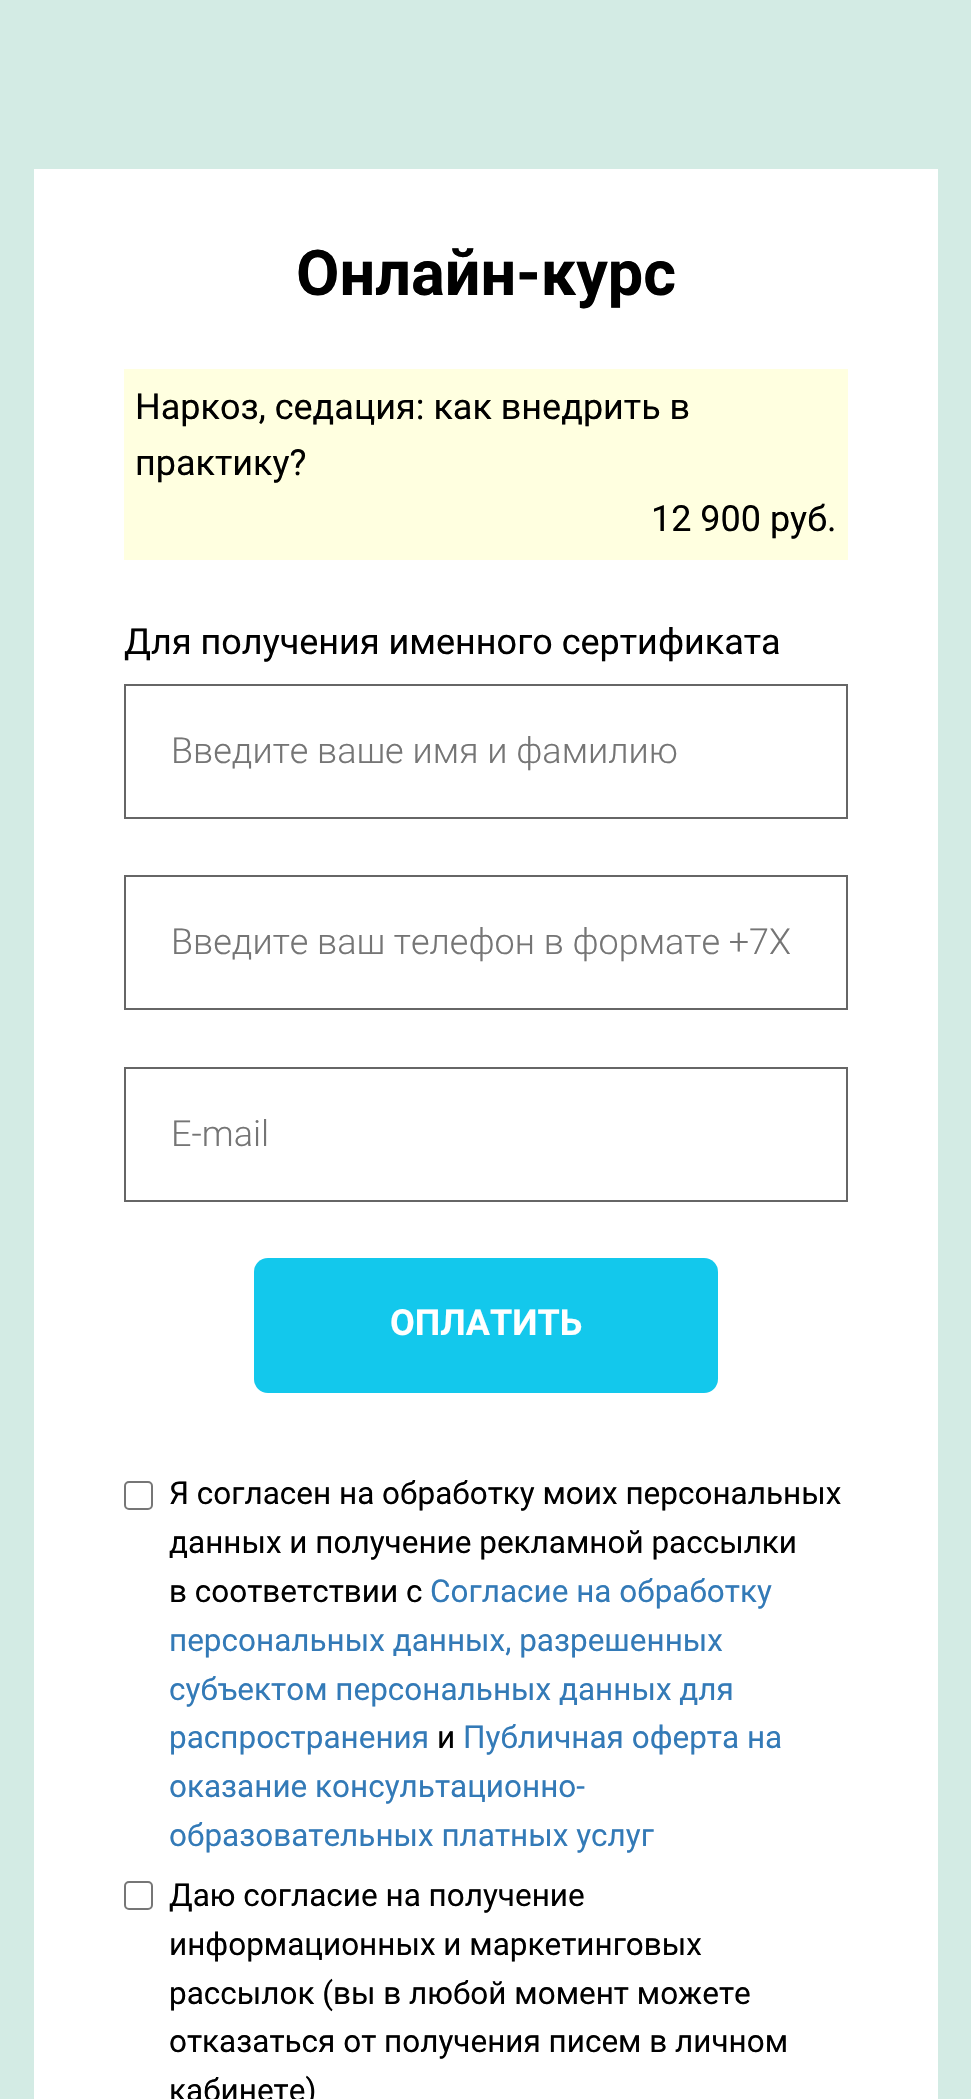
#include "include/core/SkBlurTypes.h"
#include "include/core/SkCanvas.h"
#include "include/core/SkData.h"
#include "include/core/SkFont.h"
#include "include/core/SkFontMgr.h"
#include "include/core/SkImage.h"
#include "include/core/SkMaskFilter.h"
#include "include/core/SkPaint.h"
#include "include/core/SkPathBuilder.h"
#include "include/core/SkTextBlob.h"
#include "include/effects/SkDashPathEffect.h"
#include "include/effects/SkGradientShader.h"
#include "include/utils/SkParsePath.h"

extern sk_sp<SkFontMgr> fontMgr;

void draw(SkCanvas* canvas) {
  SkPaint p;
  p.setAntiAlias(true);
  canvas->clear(SkColorSetRGB(211, 235, 228));
  p.setColor(SK_ColorWHITE);
  canvas->drawRect(SkRect::MakeLTRB(34, 169, 938, 2099), p);
  p.setColor(SkColorSetRGB(255, 255, 224));
  canvas->drawRect(SkRect::MakeLTRB(124, 369, 848, 560), p);
  p.setStyle(SkPaint::kStroke_Style);
  p.setStrokeWidth(2);
  p.setColor(SkColorSetRGB(102, 102, 102));
  canvas->drawRect(SkRect::MakeLTRB(125, 685, 847, 818), p);
  canvas->drawRect(SkRect::MakeLTRB(125, 876, 847, 1009), p);
  canvas->drawRect(SkRect::MakeLTRB(125, 1068, 847, 1201), p);
  p.setStyle(SkPaint::kFill_Style);
  p.setColor(SkColorSetRGB(19, 200, 236));
  canvas->drawRoundRect(SkRect::MakeLTRB(254, 1258, 718, 1393), 14, 14, p);
  p.setStyle(SkPaint::kStroke_Style);
  p.setColor(SkColorSetRGB(118, 118, 118));
  canvas->drawRoundRect(SkRect::MakeLTRB(125, 1482, 152, 1509), 4, 4, p);
  canvas->drawRoundRect(SkRect::MakeLTRB(125, 1882, 152, 1909), 4, 4, p);
  SkFont font1(fontMgr->matchFamilyStyle("Roboto", SkFontStyle::Bold()), 63);
  font1.setSubpixel(true);
  p.setStyle(SkPaint::kFill_Style);
  p.setColor(SK_ColorBLACK);
  canvas->drawString("Онлайн-курс", 296, 295, font1, p);
  SkFont font2(fontMgr->matchFamilyStyle("Roboto", SkFontStyle::Normal()), 36);
  font2.setSubpixel(true);
  canvas->drawString("Наркоз, седация: как внедрить в", 135, 419, font2, p);
  canvas->drawString("практику?", 135, 475, font2, p);
  canvas->drawString("12 900 руб.", 651, 531, font2, p);
  canvas->drawString("Для получения именного сертификата", 124, 654, font2, p);
  SkFont font3(fontMgr->matchFamilyStyle("Roboto", SkFontStyle(300, SkFontStyle::kNormal_Width, SkFontStyle::kUpright_Slant)), 36);
  font3.setSubpixel(true);
  p.setColor(SkColorSetRGB(117, 117, 117));
  canvas->drawString("Введите ваше имя и фамилию", 171, 763, font3, p);
  canvas->drawString("Введите ваш телефон в формате +7Х", 171, 954, font3, p);
  canvas->drawString("E-mail", 171, 1146, font3, p);
  SkFont font4(fontMgr->matchFamilyStyle("Roboto", SkFontStyle::Bold()), 36);
  font4.setSubpixel(true);
  p.setColor(SK_ColorWHITE);
  canvas->drawString("ОПЛАТИТЬ", 390, 1335, font4, p);
  SkFont font5(fontMgr->matchFamilyStyle("Roboto", SkFontStyle::Normal()), 31.5f);
  font5.setSubpixel(true);
  p.setColor(SK_ColorBLACK);
  canvas->drawString("Я согласен на обработку моих персональных", 169, 1504, font5, p);
  canvas->drawString("данных и получение рекламной рассылки", 169, 1553, font5, p);
  canvas->drawString("в соответствии с", 169, 1602, font5, p);
  p.setColor(SkColorSetRGB(51, 122, 183));
  canvas->drawString("Согласие на обработку", 430, 1602, font5, p);
  canvas->drawString("персональных данных, разрешенных", 169, 1651, font5, p);
  canvas->drawString("субъектом персональных данных для", 169, 1700, font5, p);
  canvas->drawString("распространения", 169, 1748, font5, p);
  p.setColor(SK_ColorBLACK);
  canvas->drawString("и", 437, 1748, font5, p);
  p.setColor(SkColorSetRGB(51, 122, 183));
  canvas->drawString("Публичная оферта на", 463, 1748, font5, p);
  canvas->drawString("оказание консультационно-", 169, 1797, font5, p);
  canvas->drawString("образовательных платных услуг", 169, 1846, font5, p);
  p.setColor(SK_ColorBLACK);
  canvas->drawString("Даю согласие на получение", 169, 1906, font5, p);
  canvas->drawString("информационных и маркетинговых", 169, 1955, font5, p);
  canvas->drawString("рассылок (вы в любой момент можете", 169, 2004, font5, p);
  canvas->drawString("отказаться от получения писем в личном", 169, 2052, font5, p);
  canvas->drawString("кабинете)", 169, 2101, font5, p);
}
